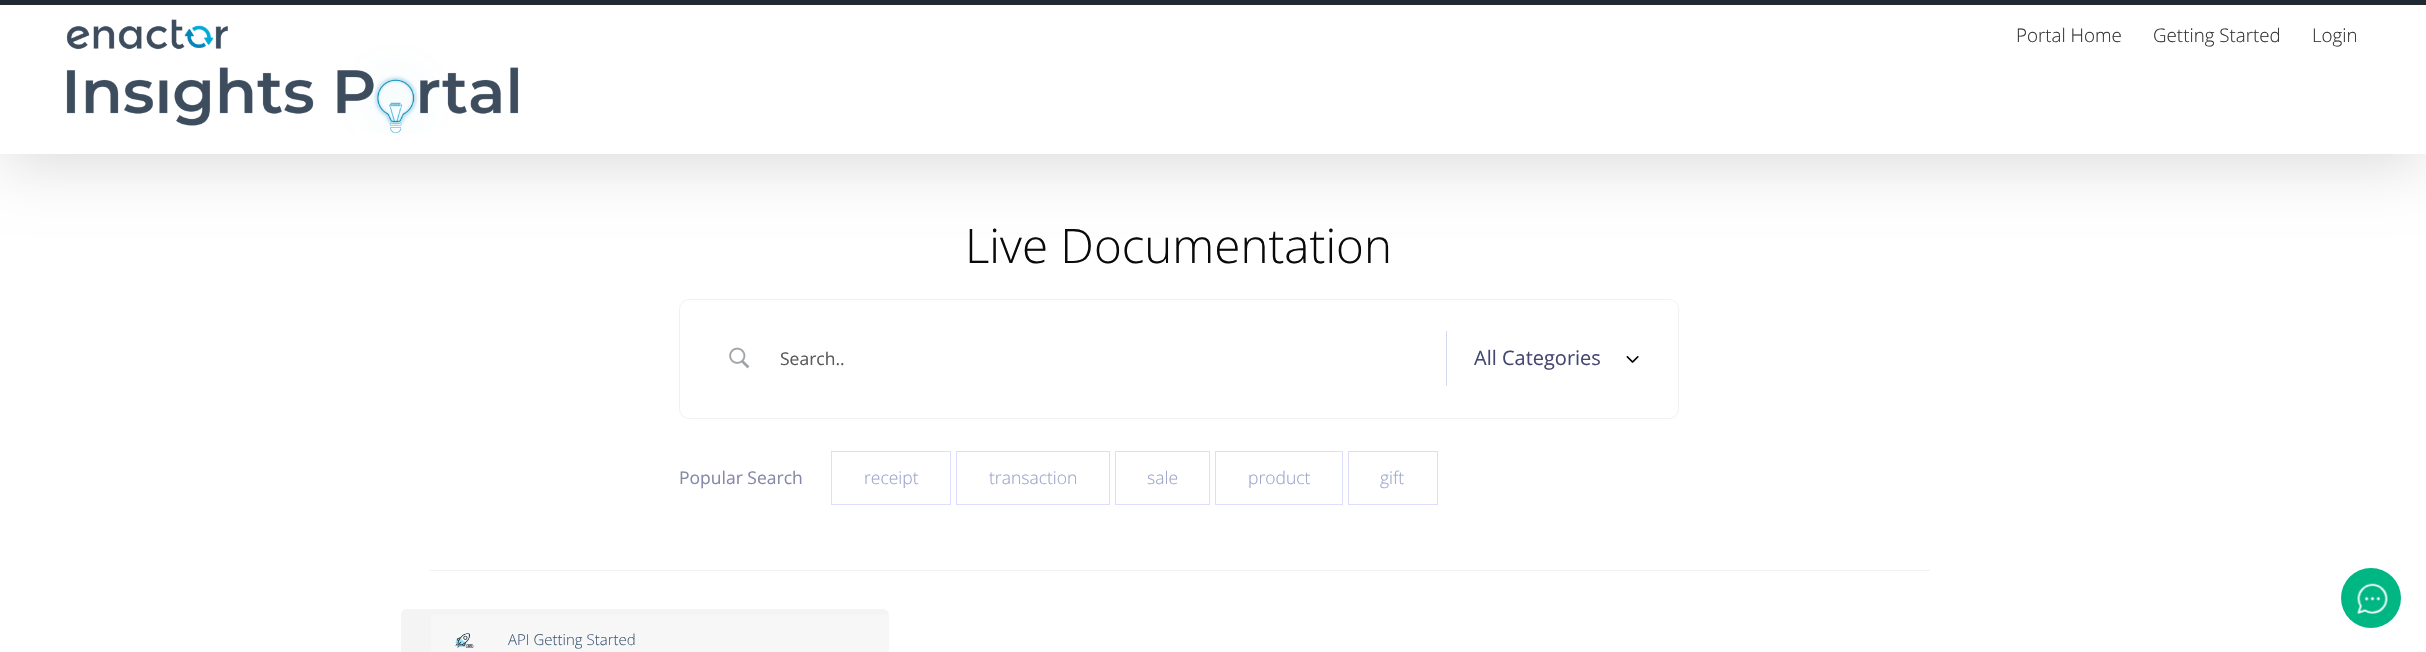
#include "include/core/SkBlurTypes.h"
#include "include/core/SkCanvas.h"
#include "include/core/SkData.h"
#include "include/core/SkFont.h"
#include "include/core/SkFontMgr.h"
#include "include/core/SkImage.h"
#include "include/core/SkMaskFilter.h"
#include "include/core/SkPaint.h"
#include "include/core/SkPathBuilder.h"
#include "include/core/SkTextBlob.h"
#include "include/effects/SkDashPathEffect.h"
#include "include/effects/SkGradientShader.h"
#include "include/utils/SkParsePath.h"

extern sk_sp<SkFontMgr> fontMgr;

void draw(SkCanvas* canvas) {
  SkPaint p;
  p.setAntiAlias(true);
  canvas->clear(SK_ColorWHITE);
  p.setColor(SkColorSetARGB(36, 0, 0, 0));
  p.setMaskFilter(SkMaskFilter::MakeBlur(kNormal_SkBlurStyle, 31));
  canvas->drawRect(SkRect::MakeLTRB(3, 15, 2424, 164), p);
  p.setMaskFilter(nullptr);
  p.setColor(SkColorSetRGB(41, 41, 42));
  canvas->drawRect(SkRect::MakeLTRB(0, 4, 2426, 5), p);
  p.setColor(SkColorSetRGB(31, 41, 53));
  canvas->drawRect(SkRect::MakeLTRB(0, 0, 2426, 4), p);
  p.setColor(SK_ColorWHITE);
  canvas->drawRect(SkRect::MakeLTRB(0, 5, 2426, 154), p);
  canvas->drawImageRect(SkImages::DeferredFromEncodedData(SkData::MakeFromFileName("images/1.png")), SkRect::MakeLTRB(66, 19, 519, 133), SkSamplingOptions());
  p.setColor(SkColorSetRGB(241, 241, 241));
  canvas->drawRect(SkRect::MakeLTRB(429, 570, 1930, 571), p);
  p.setStyle(SkPaint::kStroke_Style);
  p.setStrokeWidth(1);
  canvas->drawRoundRect(SkRect::MakeLTRB(679.5f, 299.5f, 1678.5f, 418.5f), 9.5f, 9.5f, p);
  canvas->drawImageRect(SkImages::DeferredFromEncodedData(SkData::MakeFromFileName("images/2.png")), SkRect::MakeLTRB(729, 347, 750, 369), SkSamplingOptions());
  canvas->drawImageRect(SkImages::DeferredFromEncodedData(SkData::MakeFromFileName("images/3.png")), SkRect::MakeLTRB(1626, 356, 1639, 363), SkSamplingOptions());
  p.setStyle(SkPaint::kFill_Style);
  p.setColor(SkColorSetRGB(211, 217, 239));
  canvas->drawRect(SkRect::MakeLTRB(1446, 331, 1447, 386), p);
  p.setStyle(SkPaint::kStroke_Style);
  p.setColor(SkColorSetRGB(221, 222, 255));
  canvas->drawRect(SkRect::MakeLTRB(831.5f, 451.5f, 950.5f, 504.5f), p);
  canvas->drawRect(SkRect::MakeLTRB(956.5f, 451.5f, 1109.5f, 504.5f), p);
  canvas->drawRect(SkRect::MakeLTRB(1115.5f, 451.5f, 1209.5f, 504.5f), p);
  canvas->drawRect(SkRect::MakeLTRB(1215.5f, 451.5f, 1342.5f, 504.5f), p);
  canvas->drawRect(SkRect::MakeLTRB(1348.5f, 451.5f, 1437.5f, 504.5f), p);
  p.setStyle(SkPaint::kFill_Style);
  p.setColor(SkColorSetRGB(244, 244, 244));
  canvas->drawRoundRect(SkRect::MakeLTRB(401, 609, 889, 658), 6, 6, p);
  p.setColor(SkColorSetRGB(247, 247, 247));
  canvas->drawRect(SkRect::MakeLTRB(431, 615, 889, 652), p);
  canvas->drawImageRect(SkImages::DeferredFromEncodedData(SkData::MakeFromFileName("images/4.png")), SkRect::MakeLTRB(455, 633, 474, 648), SkSamplingOptions());
  p.setColor(SkColorSetRGB(0, 182, 130));
  canvas->drawCircle(2371, 598, 30, p);
  canvas->drawImageRect(SkImages::DeferredFromEncodedData(SkData::MakeFromFileName("images/5.png")), SkRect::MakeLTRB(2357, 583, 2388, 614), SkSamplingOptions());
  SkFont font1(fontMgr->matchFamilyStyle("Open Sans", SkFontStyle(300, SkFontStyle::kNormal_Width, SkFontStyle::kUpright_Slant)), 18.75f);
  font1.setSubpixel(true);
  p.setColor(SkColorSetRGB(51, 51, 51));
  canvas->drawString("Portal Home", 2016, 42, font1, p);
  canvas->drawString("Getting Started", 2153, 42, font1, p);
  canvas->drawString("Login", 2312, 42, font1, p);
  SkFont font2(fontMgr->matchFamilyStyle("Open Sans", SkFontStyle(300, SkFontStyle::kNormal_Width, SkFontStyle::kUpright_Slant)), 47.5f);
  font2.setSubpixel(true);
  p.setColor(SkColorSetRGB(10, 10, 10));
  canvas->drawString("Live Documentation", 965, 263, font2, p);
  SkFont font3(fontMgr->matchFamilyStyle("Open Sans", SkFontStyle::Normal()), 17.5f);
  font3.setSubpixel(true);
  p.setColor(SkColorSetRGB(89, 89, 89));
  canvas->drawString("Search..", 780, 365, font3, p);
  SkFont font4(fontMgr->matchFamilyStyle("Open Sans", SkFontStyle::Normal()), 20);
  font4.setSubpixel(true);
  p.setColor(SkColorSetRGB(67, 72, 114));
  canvas->drawString("All Categories", 1474, 365, font4, p);
  p.setColor(SkColorSetRGB(133, 136, 166));
  canvas->drawString("Popular Search", 679, 484, font3, p);
  SkFont font5(fontMgr->matchFamilyStyle("Open Sans", SkFontStyle(300, SkFontStyle::kNormal_Width, SkFontStyle::kUpright_Slant)), 17.5f);
  font5.setSubpixel(true);
  p.setColor(SkColorSetRGB(153, 163, 202));
  canvas->drawString("receipt", 864, 484, font5, p);
  canvas->drawString("transaction", 989, 484, font5, p);
  canvas->drawString("sale", 1147, 484, font5, p);
  canvas->drawString("product", 1248, 484, font5, p);
  canvas->drawString("gift", 1380, 484, font5, p);
  SkFont font6(fontMgr->matchFamilyStyle("Open Sans", SkFontStyle(300, SkFontStyle::kNormal_Width, SkFontStyle::kUpright_Slant)), 15);
  font6.setSubpixel(true);
  p.setColor(SkColorSetRGB(63, 88, 118));
  canvas->drawString("API Getting Started", 508, 645, font6, p);
}
